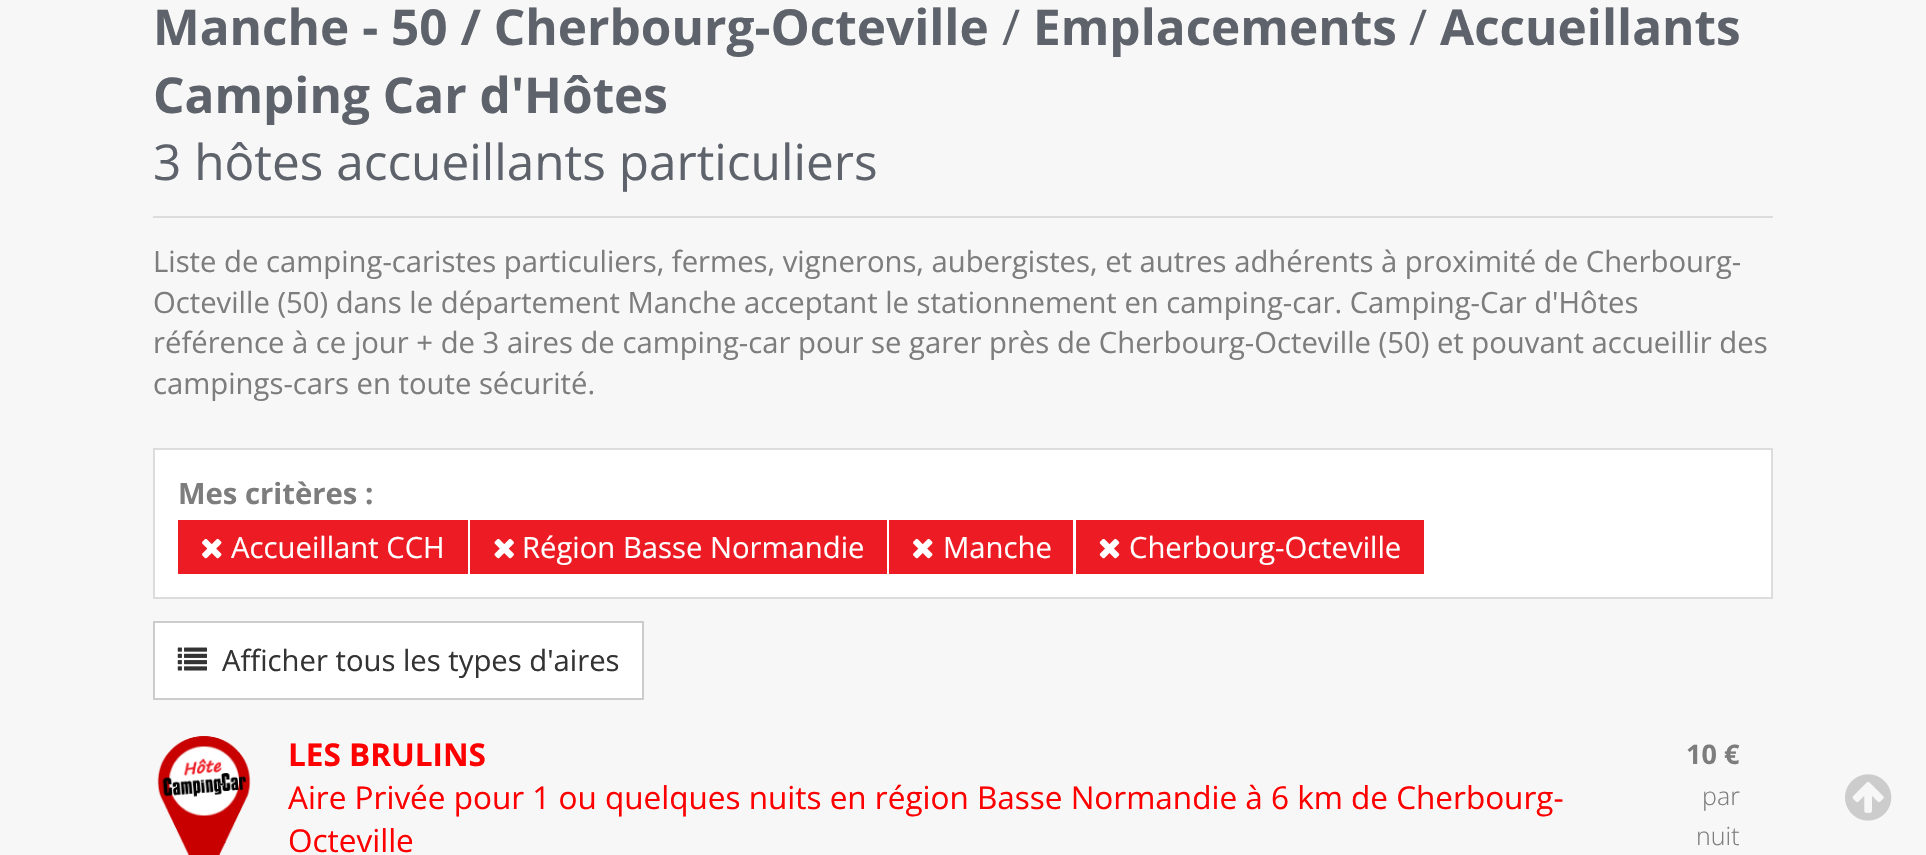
#include "include/core/SkBlurTypes.h"
#include "include/core/SkCanvas.h"
#include "include/core/SkData.h"
#include "include/core/SkFont.h"
#include "include/core/SkFontMgr.h"
#include "include/core/SkImage.h"
#include "include/core/SkMaskFilter.h"
#include "include/core/SkPaint.h"
#include "include/core/SkPathBuilder.h"
#include "include/core/SkTextBlob.h"
#include "include/effects/SkDashPathEffect.h"
#include "include/effects/SkGradientShader.h"
#include "include/utils/SkParsePath.h"

extern sk_sp<SkFontMgr> fontMgr;

void draw(SkCanvas* canvas) {
  SkPaint p;
  p.setAntiAlias(true);
  canvas->clear(SkColorSetRGB(247, 247, 247));
  p.setColor(SkColorSetRGB(220, 220, 220));
  canvas->drawRect(SkRect::MakeLTRB(153, 216, 1773, 218), p);
  p.setColor(SK_ColorWHITE);
  canvas->drawRect(SkRect::MakeLTRB(154, 449, 1772, 598), p);
  p.setStyle(SkPaint::kStroke_Style);
  p.setStrokeWidth(2);
  p.setColor(SkColorSetRGB(220, 220, 220));
  canvas->drawRect(SkRect::MakeLTRB(154, 449, 1772, 598), p);
  p.setStyle(SkPaint::kFill_Style);
  p.setColor(SkColorSetRGB(237, 28, 36));
  canvas->drawRect(SkRect::MakeLTRB(178, 520, 468, 574), p);
  canvas->drawImageRect(SkImages::DeferredFromEncodedData(SkData::MakeFromFileName("images/1.png")), SkRect::MakeLTRB(202, 538, 222, 559), SkSamplingOptions());
  canvas->drawRect(SkRect::MakeLTRB(470, 520, 887, 574), p);
  canvas->drawImageRect(SkImages::DeferredFromEncodedData(SkData::MakeFromFileName("images/2.png")), SkRect::MakeLTRB(494, 538, 514, 559), SkSamplingOptions());
  canvas->drawRect(SkRect::MakeLTRB(889, 520, 1073, 574), p);
  canvas->drawImageRect(SkImages::DeferredFromEncodedData(SkData::MakeFromFileName("images/1.png")), SkRect::MakeLTRB(913, 538, 933, 559), SkSamplingOptions());
  canvas->drawRect(SkRect::MakeLTRB(1076, 520, 1424, 574), p);
  canvas->drawImageRect(SkImages::DeferredFromEncodedData(SkData::MakeFromFileName("images/3.png")), SkRect::MakeLTRB(1099, 538, 1120, 559), SkSamplingOptions());
  p.setColor(SK_ColorWHITE);
  canvas->drawRect(SkRect::MakeLTRB(154, 622, 643, 699), p);
  p.setStyle(SkPaint::kStroke_Style);
  p.setColor(SkColorSetRGB(204, 204, 204));
  canvas->drawRect(SkRect::MakeLTRB(154, 622, 643, 699), p);
  canvas->drawImageRect(SkImages::DeferredFromEncodedData(SkData::MakeFromFileName("images/4.png")), SkRect::MakeLTRB(177, 647, 207, 671), SkSamplingOptions());
  canvas->drawImageRect(SkImages::DeferredFromEncodedData(SkData::MakeFromFileName("images/5.png")), SkRect::MakeLTRB(157, 736, 251, 855), SkSamplingOptions());
  canvas->drawImageRect(SkImages::DeferredFromEncodedData(SkData::MakeFromFileName("images/6.png")), SkRect::MakeLTRB(1845, 774, 1892, 821), SkSamplingOptions());
  SkFont font1(fontMgr->matchFamilyStyle("Open Sans", SkFontStyle::Bold()), 49.5f);
  font1.setSubpixel(true);
  p.setStyle(SkPaint::kFill_Style);
  p.setColor(SkColorSetRGB(94, 98, 107));
  canvas->drawString("Manche - 50 / Cherbourg-Octeville", 153, 45, font1, p);
  SkFont font2(fontMgr->matchFamilyStyle("Open Sans", SkFontStyle::Normal()), 49.5f);
  font2.setSubpixel(true);
  canvas->drawString("/", 1002, 45, font2, p);
  canvas->drawString("Emplacements", 1033, 45, font1, p);
  canvas->drawString("/", 1409, 45, font2, p);
  canvas->drawString("Accueillants", 1440, 45, font1, p);
  canvas->drawString("Camping Car d'Hôtes", 153, 113, font1, p);
  canvas->drawString("3 hôtes accueillants particuliers", 153, 180, font2, p);
  SkFont font3(fontMgr->matchFamilyStyle("Open Sans", SkFontStyle::Normal()), 29.25f);
  font3.setSubpixel(true);
  p.setColor(SkColorSetRGB(125, 125, 125));
  canvas->drawString("Liste de camping-caristes particuliers, fermes, vignerons, aubergistes, et autres adhérents à proximité de Cherbourg-", 153, 272, font3, p);
  canvas->drawString("Octeville (50) dans le département Manche acceptant le stationnement en camping-car. Camping-Car d'Hôtes", 153, 313, font3, p);
  canvas->drawString("référence à ce jour + de 3 aires de camping-car pour se garer près de Cherbourg-Octeville (50) et pouvant accueillir des", 153, 353, font3, p);
  canvas->drawString("campings-cars en toute sécurité.", 153, 394, font3, p);
  SkFont font4(fontMgr->matchFamilyStyle("Open Sans", SkFontStyle::Bold()), 29.25f);
  font4.setSubpixel(true);
  canvas->drawString("Mes critères :", 178, 504, font4, p);
  p.setColor(SK_ColorWHITE);
  canvas->drawString("Accueillant CCH", 231, 558, font3, p);
  canvas->drawString("Région Basse Normandie", 522, 558, font3, p);
  canvas->drawString("Manche", 943, 558, font3, p);
  canvas->drawString("Cherbourg-Octeville", 1129, 558, font3, p);
  p.setColor(SkColorSetRGB(51, 51, 51));
  canvas->drawString("Afficher tous les types d'aires", 222, 671, font3, p);
  SkFont font5(fontMgr->matchFamilyStyle("Open Sans", SkFontStyle::Bold()), 31.5f);
  font5.setSubpixel(true);
  p.setColor(SkColorSetRGB(255, 0, 0));
  canvas->drawString("LES BRULINS", 288, 766, font5, p);
  SkFont font6(fontMgr->matchFamilyStyle("Open Sans", SkFontStyle::Normal()), 31.5f);
  font6.setSubpixel(true);
  canvas->drawString("Aire Privée pour 1 ou quelques nuits en région Basse Normandie à 6 km de Cherbourg-", 288, 809, font6, p);
  canvas->drawString("Octeville", 288, 852, font6, p);
  SkFont font7(fontMgr->matchFamilyStyle("Open Sans", SkFontStyle::Bold()), 27);
  font7.setSubpixel(true);
  p.setColor(SkColorSetRGB(125, 125, 125));
  canvas->drawString("10 €", 1686, 764, font7, p);
  SkFont font8(fontMgr->matchFamilyStyle("Open Sans", SkFontStyle(300, SkFontStyle::kNormal_Width, SkFontStyle::kUpright_Slant)), 25);
  font8.setSubpixel(true);
  canvas->drawString("par", 1702, 805, font8, p);
  canvas->drawString("nuit", 1696, 845, font8, p);
}
